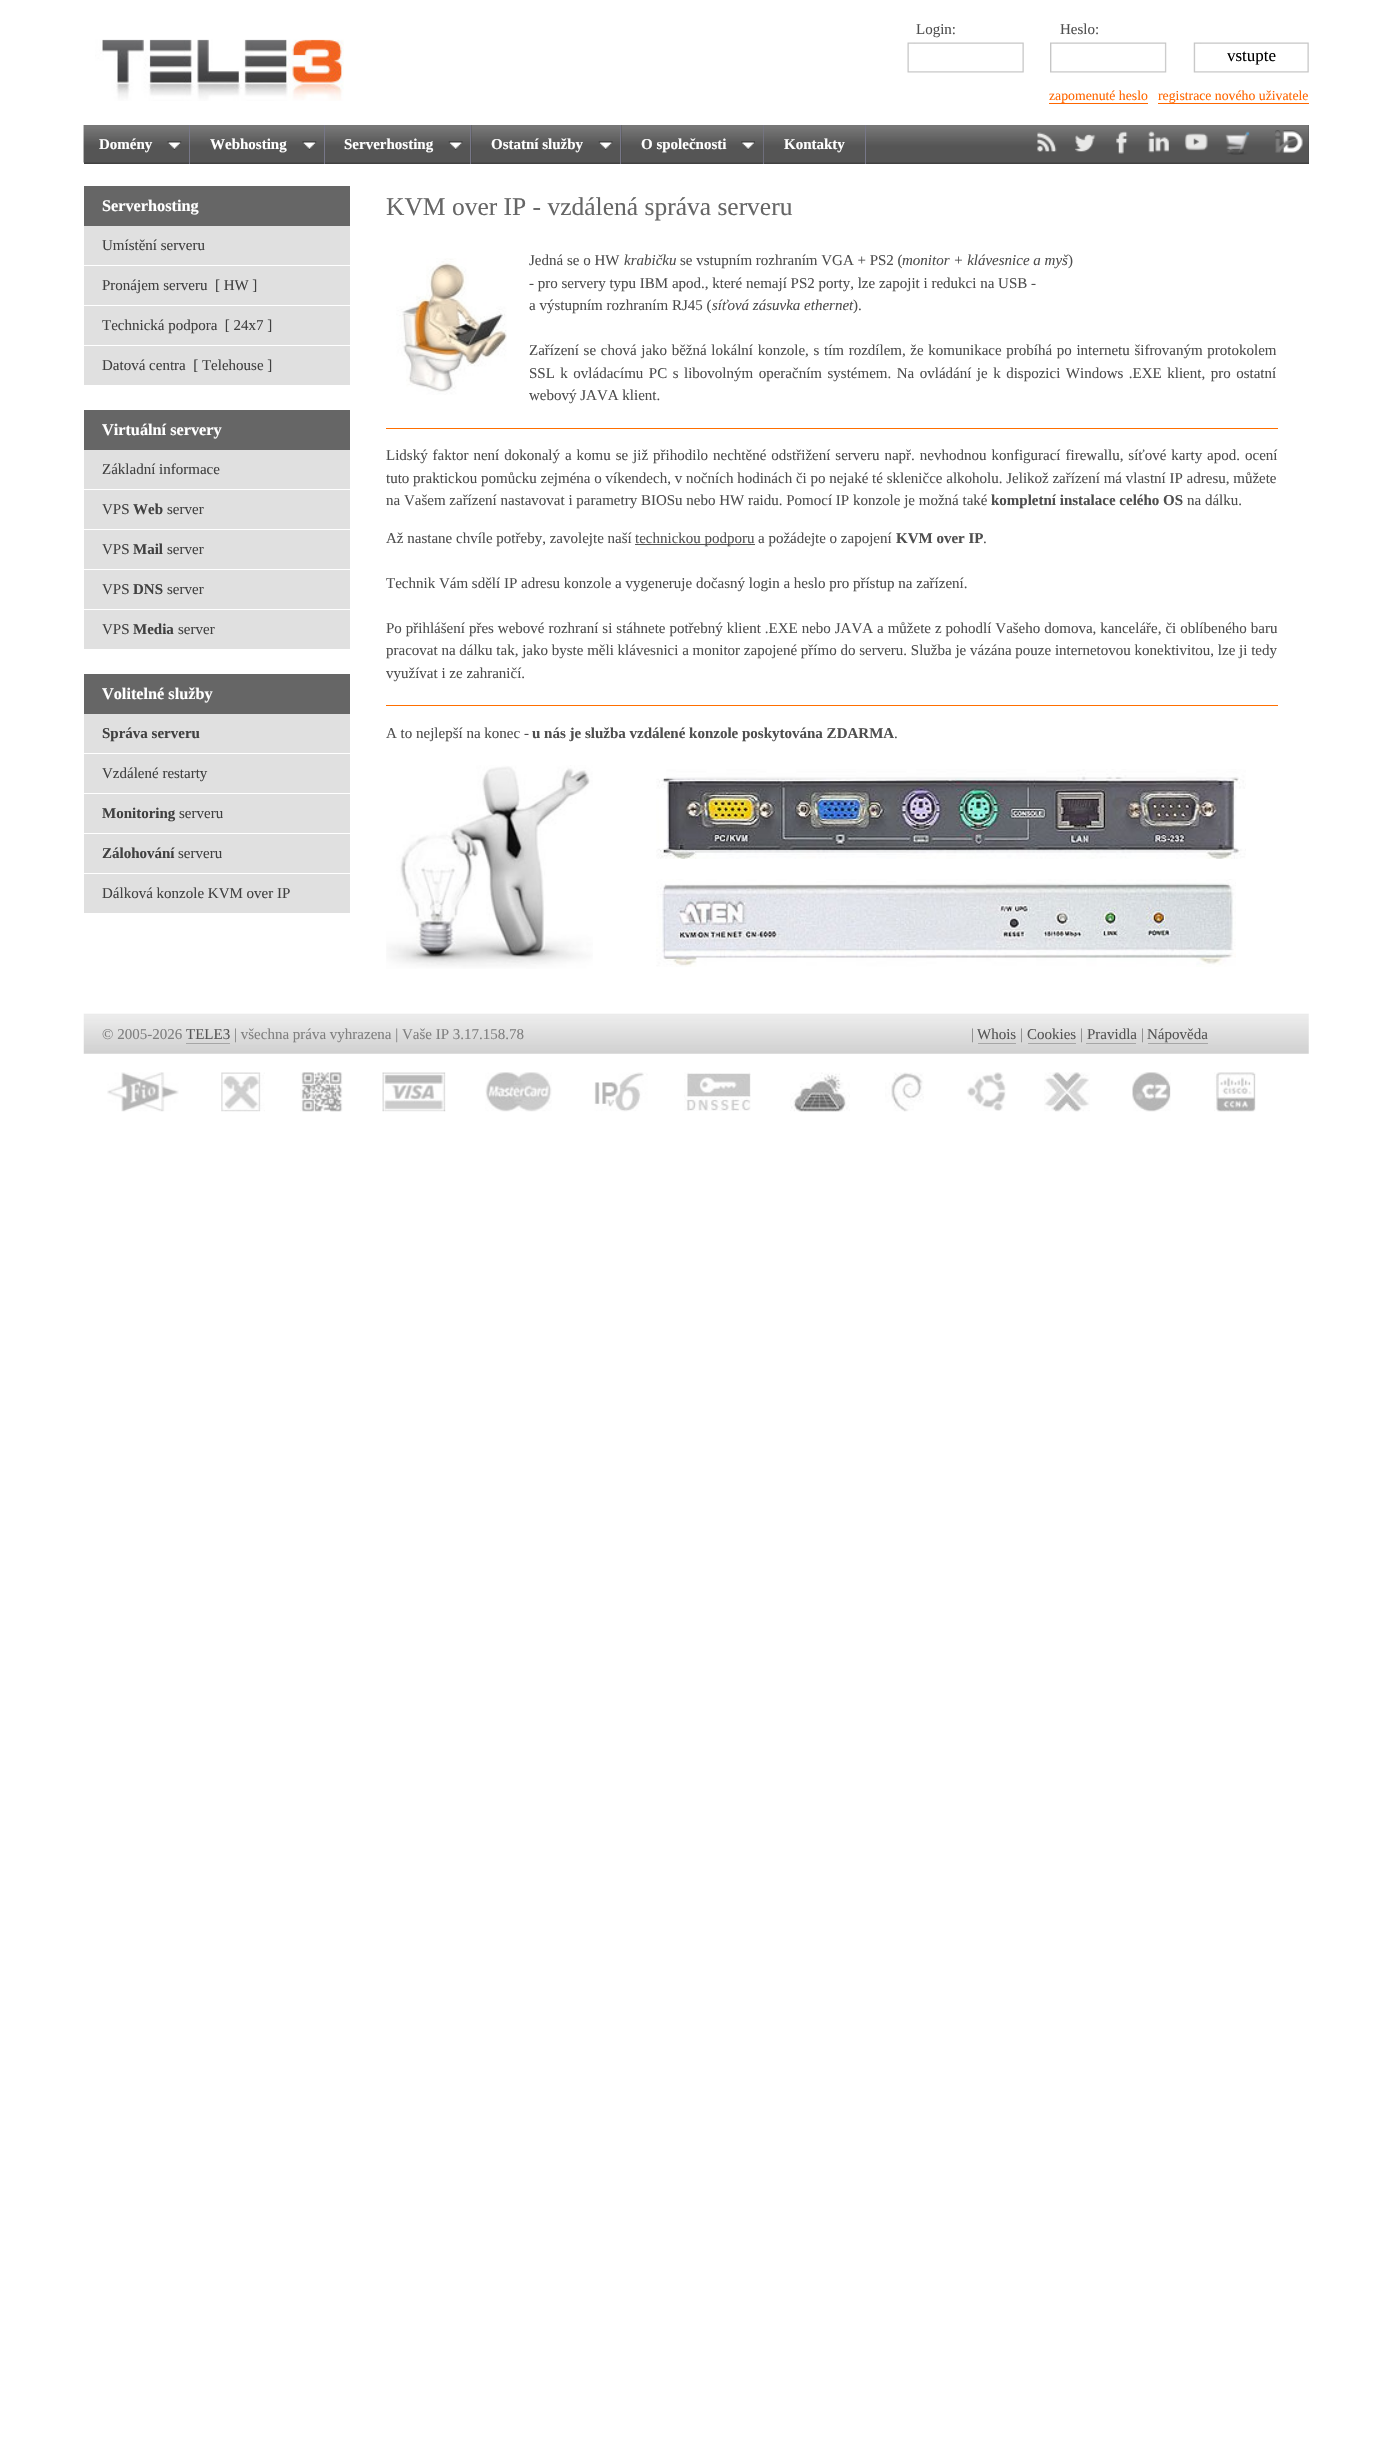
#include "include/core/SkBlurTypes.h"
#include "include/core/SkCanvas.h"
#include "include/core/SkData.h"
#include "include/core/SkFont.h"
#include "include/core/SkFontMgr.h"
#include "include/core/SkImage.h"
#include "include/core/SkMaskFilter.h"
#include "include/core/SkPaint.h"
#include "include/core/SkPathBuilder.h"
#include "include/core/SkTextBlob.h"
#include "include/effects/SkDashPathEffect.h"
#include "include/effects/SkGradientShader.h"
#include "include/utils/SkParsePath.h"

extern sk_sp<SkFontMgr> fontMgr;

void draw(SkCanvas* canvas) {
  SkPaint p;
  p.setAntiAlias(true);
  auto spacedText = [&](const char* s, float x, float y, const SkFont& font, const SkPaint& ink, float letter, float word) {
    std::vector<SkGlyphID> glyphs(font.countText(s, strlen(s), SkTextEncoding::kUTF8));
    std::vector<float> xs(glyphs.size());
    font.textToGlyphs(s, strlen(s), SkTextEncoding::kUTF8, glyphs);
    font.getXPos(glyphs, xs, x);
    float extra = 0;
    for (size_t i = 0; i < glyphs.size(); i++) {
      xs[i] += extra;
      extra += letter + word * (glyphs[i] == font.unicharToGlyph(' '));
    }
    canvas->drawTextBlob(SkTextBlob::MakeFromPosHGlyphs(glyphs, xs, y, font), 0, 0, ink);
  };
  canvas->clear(SK_ColorWHITE);
  canvas->drawImageRect(SkImages::DeferredFromEncodedData(SkData::MakeFromFileName("images/1.png")), SkRect::MakeLTRB(95, 39, 344, 101), SkSamplingOptions());
  canvas->drawImageRect(SkImages::DeferredFromEncodedData(SkData::MakeFromFileName("images/2.png")), SkRect::MakeLTRB(907, 42, 1024, 73), SkSamplingOptions());
  canvas->drawImageRect(SkImages::DeferredFromEncodedData(SkData::MakeFromFileName("images/3.png")), SkRect::MakeLTRB(1050, 42, 1167, 73), SkSamplingOptions());
  canvas->drawImageRect(SkImages::DeferredFromEncodedData(SkData::MakeFromFileName("images/4.png")), SkRect::MakeLTRB(1193, 42, 1309, 73), SkSamplingOptions());
  p.setColor(SkColorSetRGB(255, 102, 0));
  canvas->drawRect(SkRect::MakeLTRB(1049, 103, 1148, 104), p);
  canvas->drawRect(SkRect::MakeLTRB(1158, 103, 1309, 104), p);
  p.setColor(SkColorSetRGB(65, 65, 65));
  canvas->drawRect(SkRect::MakeLTRB(866, 125, 1309, 164), p);
  canvas->drawImageRect(SkImages::DeferredFromEncodedData(SkData::MakeFromFileName("images/12.png")), SkRect::MakeLTRB(83, 125, 1309, 163), SkSamplingOptions());
  canvas->drawImageRect(SkImages::DeferredFromEncodedData(SkData::MakeFromFileName("images/5.png")), SkRect::MakeLTRB(1037, 132, 1057, 152), SkSamplingOptions());
  canvas->drawImageRect(SkImages::DeferredFromEncodedData(SkData::MakeFromFileName("images/6.png")), SkRect::MakeLTRB(1075, 134, 1096, 152), SkSamplingOptions());
  canvas->drawImageRect(SkImages::DeferredFromEncodedData(SkData::MakeFromFileName("images/7.png")), SkRect::MakeLTRB(1116, 131, 1128, 154), SkSamplingOptions());
  canvas->drawImageRect(SkImages::DeferredFromEncodedData(SkData::MakeFromFileName("images/8.png")), SkRect::MakeLTRB(1148, 131, 1169, 153), SkSamplingOptions());
  canvas->drawImageRect(SkImages::DeferredFromEncodedData(SkData::MakeFromFileName("images/9.png")), SkRect::MakeLTRB(1184, 133, 1208, 151), SkSamplingOptions());
  canvas->drawImageRect(SkImages::DeferredFromEncodedData(SkData::MakeFromFileName("images/10.png")), SkRect::MakeLTRB(1225, 131, 1250, 155), SkSamplingOptions());
  canvas->drawImageRect(SkImages::DeferredFromEncodedData(SkData::MakeFromFileName("images/11.png")), SkRect::MakeLTRB(1275, 130, 1303, 153), SkSamplingOptions());
  canvas->drawRect(SkRect::MakeLTRB(84, 162, 189, 164), p);
  canvas->drawImageRect(SkImages::DeferredFromEncodedData(SkData::MakeFromFileName("images/13.png")), SkRect::MakeLTRB(83, 125, 189, 163), SkSamplingOptions());
  p.setColor(SkColorSetRGB(119, 119, 136));
  canvas->drawRect(SkRect::MakeLTRB(189, 125, 190, 164), p);
  canvas->drawImageRect(SkImages::DeferredFromEncodedData(SkData::MakeFromFileName("images/14.png")), SkRect::MakeLTRB(167, 141, 182, 150), SkSamplingOptions());
  p.setColor(SkColorSetRGB(65, 65, 65));
  canvas->drawRect(SkRect::MakeLTRB(190, 162, 324, 164), p);
  canvas->drawImageRect(SkImages::DeferredFromEncodedData(SkData::MakeFromFileName("images/15.png")), SkRect::MakeLTRB(190, 125, 324, 163), SkSamplingOptions());
  p.setColor(SkColorSetRGB(119, 119, 136));
  canvas->drawRect(SkRect::MakeLTRB(324, 125, 325, 164), p);
  canvas->drawImageRect(SkImages::DeferredFromEncodedData(SkData::MakeFromFileName("images/14.png")), SkRect::MakeLTRB(302, 141, 317, 150), SkSamplingOptions());
  p.setColor(SkColorSetRGB(65, 65, 65));
  canvas->drawRect(SkRect::MakeLTRB(325, 162, 470, 164), p);
  canvas->drawImageRect(SkImages::DeferredFromEncodedData(SkData::MakeFromFileName("images/16.png")), SkRect::MakeLTRB(325, 125, 470, 163), SkSamplingOptions());
  p.setColor(SkColorSetRGB(119, 119, 136));
  canvas->drawRect(SkRect::MakeLTRB(470, 125, 471, 164), p);
  canvas->drawImageRect(SkImages::DeferredFromEncodedData(SkData::MakeFromFileName("images/17.png")), SkRect::MakeLTRB(448, 141, 463, 150), SkSamplingOptions());
  p.setColor(SkColorSetRGB(65, 65, 65));
  canvas->drawRect(SkRect::MakeLTRB(471, 125, 620, 164), p);
  canvas->drawImageRect(SkImages::DeferredFromEncodedData(SkData::MakeFromFileName("images/18.png")), SkRect::MakeLTRB(471, 125, 620, 163), SkSamplingOptions());
  p.setColor(SkColorSetRGB(119, 119, 136));
  canvas->drawRect(SkRect::MakeLTRB(620, 125, 621, 164), p);
  canvas->drawImageRect(SkImages::DeferredFromEncodedData(SkData::MakeFromFileName("images/17.png")), SkRect::MakeLTRB(598, 141, 613, 150), SkSamplingOptions());
  p.setColor(SkColorSetRGB(65, 65, 65));
  canvas->drawRect(SkRect::MakeLTRB(621, 125, 763, 164), p);
  canvas->drawImageRect(SkImages::DeferredFromEncodedData(SkData::MakeFromFileName("images/19.png")), SkRect::MakeLTRB(621, 125, 763, 163), SkSamplingOptions());
  p.setColor(SkColorSetRGB(119, 119, 136));
  canvas->drawRect(SkRect::MakeLTRB(763, 125, 764, 164), p);
  canvas->drawImageRect(SkImages::DeferredFromEncodedData(SkData::MakeFromFileName("images/20.png")), SkRect::MakeLTRB(741, 141, 755, 150), SkSamplingOptions());
  p.setColor(SkColorSetRGB(65, 65, 65));
  canvas->drawRect(SkRect::MakeLTRB(764, 162, 865, 164), p);
  canvas->drawImageRect(SkImages::DeferredFromEncodedData(SkData::MakeFromFileName("images/21.png")), SkRect::MakeLTRB(763, 125, 865, 163), SkSamplingOptions());
  p.setColor(SkColorSetRGB(119, 119, 136));
  canvas->drawRect(SkRect::MakeLTRB(865, 125, 866, 164), p);
  p.setColor(SkColorSetRGB(102, 102, 102));
  canvas->drawRect(SkRect::MakeLTRB(84, 186, 350, 226), p);
  p.setColor(SkColorSetRGB(224, 224, 224));
  canvas->drawRect(SkRect::MakeLTRB(84, 226, 350, 265), p);
  canvas->drawRect(SkRect::MakeLTRB(84, 266, 350, 305), p);
  canvas->drawRect(SkRect::MakeLTRB(84, 306, 350, 345), p);
  canvas->drawRect(SkRect::MakeLTRB(84, 346, 350, 385), p);
  p.setColor(SkColorSetRGB(102, 102, 102));
  canvas->drawRect(SkRect::MakeLTRB(84, 410, 350, 450), p);
  p.setColor(SkColorSetRGB(224, 224, 224));
  canvas->drawRect(SkRect::MakeLTRB(84, 450, 350, 489), p);
  canvas->drawRect(SkRect::MakeLTRB(84, 490, 350, 529), p);
  canvas->drawRect(SkRect::MakeLTRB(84, 530, 350, 569), p);
  canvas->drawRect(SkRect::MakeLTRB(84, 570, 350, 609), p);
  canvas->drawRect(SkRect::MakeLTRB(84, 610, 350, 649), p);
  p.setColor(SkColorSetRGB(102, 102, 102));
  canvas->drawRect(SkRect::MakeLTRB(84, 674, 350, 714), p);
  p.setColor(SkColorSetRGB(224, 224, 224));
  canvas->drawRect(SkRect::MakeLTRB(84, 714, 350, 753), p);
  canvas->drawRect(SkRect::MakeLTRB(84, 754, 350, 793), p);
  canvas->drawRect(SkRect::MakeLTRB(84, 794, 350, 833), p);
  canvas->drawRect(SkRect::MakeLTRB(84, 834, 350, 873), p);
  canvas->drawRect(SkRect::MakeLTRB(84, 874, 350, 913), p);
  canvas->drawImageRect(SkImages::DeferredFromEncodedData(SkData::MakeFromFileName("images/22.png")), SkRect::MakeLTRB(396, 258, 507, 395), SkSamplingOptions());
  p.setColor(SkColorSetRGB(255, 111, 0));
  canvas->drawRect(SkRect::MakeLTRB(386, 428, 1278, 429), p);
  p.setColor(SkColorSetRGB(85, 85, 85));
  canvas->drawRect(SkRect::MakeLTRB(635, 544, 755, 545), p);
  p.setColor(SkColorSetRGB(255, 111, 0));
  canvas->drawRect(SkRect::MakeLTRB(386, 705, 1278, 706), p);
  canvas->drawImageRect(SkImages::DeferredFromEncodedData(SkData::MakeFromFileName("images/23.png")), SkRect::MakeLTRB(386, 765, 593, 969), SkSamplingOptions());
  canvas->drawImageRect(SkImages::DeferredFromEncodedData(SkData::MakeFromFileName("images/24.png")), SkRect::MakeLTRB(656, 769, 1246, 859), SkSamplingOptions());
  canvas->drawImageRect(SkImages::DeferredFromEncodedData(SkData::MakeFromFileName("images/25.png")), SkRect::MakeLTRB(656, 879, 1236, 967), SkSamplingOptions());
  canvas->drawImageRect(SkImages::DeferredFromEncodedData(SkData::MakeFromFileName("images/26.png")), SkRect::MakeLTRB(83, 1013, 1309, 1054), SkSamplingOptions());
  p.setColor(SkColorSetRGB(166, 166, 166));
  canvas->drawRect(SkRect::MakeLTRB(186, 1043, 230, 1044), p);
  canvas->drawRect(SkRect::MakeLTRB(978, 1043, 1016, 1044), p);
  canvas->drawRect(SkRect::MakeLTRB(1028, 1043, 1076, 1044), p);
  canvas->drawRect(SkRect::MakeLTRB(1086, 1043, 1136, 1044), p);
  canvas->drawRect(SkRect::MakeLTRB(1148, 1043, 1208, 1044), p);
  canvas->drawImageRect(SkImages::DeferredFromEncodedData(SkData::MakeFromFileName("images/27.png")), SkRect::MakeLTRB(107, 1072, 179, 1112), SkSamplingOptions());
  canvas->drawImageRect(SkImages::DeferredFromEncodedData(SkData::MakeFromFileName("images/28.png")), SkRect::MakeLTRB(221, 1072, 265, 1112), SkSamplingOptions());
  canvas->drawImageRect(SkImages::DeferredFromEncodedData(SkData::MakeFromFileName("images/29.png")), SkRect::MakeLTRB(300, 1072, 343, 1112), SkSamplingOptions());
  canvas->drawImageRect(SkImages::DeferredFromEncodedData(SkData::MakeFromFileName("images/30.png")), SkRect::MakeLTRB(382, 1072, 446, 1112), SkSamplingOptions());
  canvas->drawImageRect(SkImages::DeferredFromEncodedData(SkData::MakeFromFileName("images/31.png")), SkRect::MakeLTRB(485, 1072, 552, 1112), SkSamplingOptions());
  canvas->drawImageRect(SkImages::DeferredFromEncodedData(SkData::MakeFromFileName("images/32.png")), SkRect::MakeLTRB(594, 1072, 648, 1112), SkSamplingOptions());
  canvas->drawImageRect(SkImages::DeferredFromEncodedData(SkData::MakeFromFileName("images/33.png")), SkRect::MakeLTRB(684, 1072, 751, 1111), SkSamplingOptions());
  canvas->drawImageRect(SkImages::DeferredFromEncodedData(SkData::MakeFromFileName("images/34.png")), SkRect::MakeLTRB(790, 1072, 850, 1112), SkSamplingOptions());
  canvas->drawImageRect(SkImages::DeferredFromEncodedData(SkData::MakeFromFileName("images/35.png")), SkRect::MakeLTRB(885, 1072, 924, 1112), SkSamplingOptions());
  canvas->drawImageRect(SkImages::DeferredFromEncodedData(SkData::MakeFromFileName("images/36.png")), SkRect::MakeLTRB(967, 1072, 1006, 1111), SkSamplingOptions());
  canvas->drawImageRect(SkImages::DeferredFromEncodedData(SkData::MakeFromFileName("images/37.png")), SkRect::MakeLTRB(1044, 1072, 1090, 1112), SkSamplingOptions());
  canvas->drawImageRect(SkImages::DeferredFromEncodedData(SkData::MakeFromFileName("images/38.png")), SkRect::MakeLTRB(1132, 1072, 1171, 1112), SkSamplingOptions());
  canvas->drawImageRect(SkImages::DeferredFromEncodedData(SkData::MakeFromFileName("images/39.png")), SkRect::MakeLTRB(1214, 1072, 1256, 1112), SkSamplingOptions());
  SkFont font1(fontMgr->matchFamilyStyle("Liberation Serif", SkFontStyle::Normal()), 15);
  font1.setSubpixel(true);
  p.setColor(SkColorSetRGB(79, 79, 79));
  canvas->drawString("Login:", 916, 34, font1, p);
  canvas->drawString("Heslo:", 1060, 34, font1, p);
  SkFont font2(fontMgr->matchFamilyStyle("Liberation Serif", SkFontStyle::Normal()), 17);
  font2.setSubpixel(true);
  p.setColor(SK_ColorBLACK);
  canvas->drawString("vstupte", 1227, 61, font2, p);
  SkFont font3(fontMgr->matchFamilyStyle("Liberation Serif", SkFontStyle::Normal()), 13.75f);
  font3.setSubpixel(true);
  p.setColor(SkColorSetRGB(255, 102, 0));
  canvas->drawString("zapomenuté heslo", 1049, 100, font3, p);
  canvas->drawString("registrace nového uživatele", 1158, 100, font3, p);
  SkFont font4(fontMgr->matchFamilyStyle("Liberation Serif", SkFontStyle::Bold()), 15);
  font4.setSubpixel(true);
  p.setColor(SK_ColorWHITE);
  canvas->drawString("Domény", 99, 149, font4, p);
  canvas->drawString("Webhosting", 210, 149, font4, p);
  canvas->drawString("Serverhosting", 344, 149, font4, p);
  canvas->drawString("Ostatní služby", 491, 149, font4, p);
  canvas->drawString("O společnosti", 641, 149, font4, p);
  canvas->drawString("Kontakty", 784, 149, font4, p);
  SkFont font5(fontMgr->matchFamilyStyle("Liberation Serif", SkFontStyle::Bold()), 16.25f);
  font5.setSubpixel(true);
  canvas->drawString("Serverhosting", 102, 211, font5, p);
  p.setColor(SkColorSetRGB(65, 65, 65));
  canvas->drawString("Umístění serveru", 102, 250, font1, p);
  canvas->drawString("Pronájem serveru  [ HW ]", 102, 290, font1, p);
  canvas->drawString("Technická podpora  [ 24x7 ]", 102, 330, font1, p);
  canvas->drawString("Datová centra  [ Telehouse ]", 102, 370, font1, p);
  p.setColor(SK_ColorWHITE);
  canvas->drawString("Virtuální servery", 102, 435, font5, p);
  p.setColor(SkColorSetRGB(65, 65, 65));
  canvas->drawString("Základní informace", 102, 474, font1, p);
  canvas->drawString("VPS", 102, 514, font1, p);
  canvas->drawString("Web", 133, 514, font4, p);
  canvas->drawString("server", 167, 514, font1, p);
  canvas->drawString("VPS", 102, 554, font1, p);
  canvas->drawString("Mail", 133, 554, font4, p);
  canvas->drawString("server", 167, 554, font1, p);
  canvas->drawString("VPS", 102, 594, font1, p);
  canvas->drawString("DNS", 133, 594, font4, p);
  canvas->drawString("server", 167, 594, font1, p);
  canvas->drawString("VPS", 102, 634, font1, p);
  canvas->drawString("Media", 133, 634, font4, p);
  canvas->drawString("server", 178, 634, font1, p);
  p.setColor(SK_ColorWHITE);
  canvas->drawString("Volitelné služby", 102, 699, font5, p);
  p.setColor(SkColorSetRGB(65, 65, 65));
  canvas->drawString("Správa serveru", 102, 738, font4, p);
  canvas->drawString("Vzdálené restarty", 102, 778, font1, p);
  canvas->drawString("Monitoring", 102, 818, font4, p);
  canvas->drawString("serveru", 179, 818, font1, p);
  canvas->drawString("Zálohování", 102, 858, font4, p);
  canvas->drawString("serveru", 178, 858, font1, p);
  canvas->drawString("Dálková konzole KVM over IP", 102, 898, font1, p);
  SkFont font6(fontMgr->matchFamilyStyle("Liberation Serif", SkFontStyle::Normal()), 25.5f);
  font6.setSubpixel(true);
  p.setColor(SkColorSetRGB(102, 102, 102));
  canvas->drawString("KVM over IP - vzdálená správa serveru", 386, 215, font6, p);
  p.setColor(SkColorSetRGB(79, 79, 79));
  canvas->drawString("Jedná se o HW", 529, 265, font1, p);
  SkFont font7(fontMgr->matchFamilyStyle("Liberation Serif", SkFontStyle::Italic()), 15);
  font7.setSubpixel(true);
  canvas->drawString("krabičku", 624, 265, font7, p);
  canvas->drawString("se vstupním rozhraním VGA + PS2 (", 680, 265, font1, p);
  canvas->drawString("monitor + klávesnice a myš", 902, 265, font7, p);
  canvas->drawString(")", 1068, 265, font1, p);
  canvas->drawString("- pro servery typu IBM apod., které nemají PS2 porty, lze zapojit i redukci na USB -", 529, 288, font1, p);
  canvas->drawString("a výstupním rozhraním RJ45 (", 529, 310, font1, p);
  canvas->drawString("síťová zásuvka ethernet", 712, 310, font7, p);
  canvas->drawString(").", 853, 310, font1, p);
  spacedText("Zařízení se chová jako běžná lokální konzole, s tím rozdílem, že komunikace probíhá po internetu šifrovaným protokolem", 529, 355, font1, p, 0, 0.9f);
  spacedText("SSL k ovládacímu PC s libovolným operačním systémem. Na ovládání je k dispozici Windows .EXE klient, pro ostatní", 529, 378, font1, p, 0, 1.75f);
  canvas->drawString("webový JAVA klient.", 529, 400, font1, p);
  spacedText("Lidský faktor není dokonalý a komu se již přihodilo nechtěné odstřižení serveru např. nevhodnou konfigurací firewallu, síťové karty apod. ocení", 386, 460, font1, p, 0, 1.2f);
  canvas->drawString("tuto praktickou pomůcku zejména o víkendech, v nočních hodinách či po nejaké té skleničce alkoholu. Jelikož zařízení má vlastní IP adresu, můžete", 386, 483, font1, p);
  canvas->drawString("na Vašem zařízení nastavovat i parametry BIOSu nebo HW raidu. Pomocí IP konzole je možná také", 386, 505, font1, p);
  canvas->drawString("kompletní instalace celého OS", 991, 505, font4, p);
  canvas->drawString("na dálku.", 1187, 505, font1, p);
  canvas->drawString("Až nastane chvíle potřeby, zavolejte naší", 386, 543, font1, p);
  p.setColor(SkColorSetRGB(85, 85, 85));
  canvas->drawString("technickou podporu", 635, 543, font1, p);
  p.setColor(SkColorSetRGB(79, 79, 79));
  canvas->drawString("a požádejte o zapojení", 758, 543, font1, p);
  canvas->drawString("KVM over IP", 896, 543, font4, p);
  canvas->drawString(".", 983, 543, font1, p);
  canvas->drawString("Technik Vám sdělí IP adresu konzole a vygeneruje dočasný login a heslo pro přístup na zařízení.", 386, 588, font1, p);
  spacedText("Po přihlášení přes webové rozhraní si stáhnete potřebný klient .EXE nebo JAVA a můžete z pohodlí Vašeho domova, kanceláře, či oblíbeného baru", 386, 633, font1, p, 0, 0.2f);
  canvas->drawString("pracovat na dálku tak, jako byste měli klávesnici a monitor zapojené přímo do serveru. Služba je vázána pouze internetovou konektivitou, lze ji tedy", 386, 655, font1, p);
  canvas->drawString("využívat i ze zahraničí.", 386, 678, font1, p);
  canvas->drawString("A to nejlepší na konec -", 386, 738, font1, p);
  canvas->drawString("u nás je služba vzdálené konzole poskytována ZDARMA", 532, 738, font4, p);
  canvas->drawString(".", 894, 738, font1, p);
  p.setColor(SkColorSetRGB(128, 128, 128));
  canvas->drawString("© 2005-2026", 102, 1039, font1, p);
  p.setColor(SkColorSetRGB(85, 85, 85));
  canvas->drawString("TELE3", 186, 1039, font1, p);
  p.setColor(SkColorSetRGB(128, 128, 128));
  canvas->drawString("| všechna práva vyhrazena | Vaše IP 3.17.158.78", 234, 1039, font1, p);
  canvas->drawString("|", 971, 1039, font1, p);
  p.setColor(SkColorSetRGB(85, 85, 85));
  canvas->drawString("Whois", 977, 1039, font1, p);
  p.setColor(SkColorSetRGB(128, 128, 128));
  canvas->drawString("|", 1020, 1039, font1, p);
  p.setColor(SkColorSetRGB(85, 85, 85));
  canvas->drawString("Cookies", 1027, 1039, font1, p);
  p.setColor(SkColorSetRGB(128, 128, 128));
  canvas->drawString("|", 1080, 1039, font1, p);
  p.setColor(SkColorSetRGB(85, 85, 85));
  canvas->drawString("Pravidla", 1087, 1039, font1, p);
  p.setColor(SkColorSetRGB(128, 128, 128));
  canvas->drawString("|", 1141, 1039, font1, p);
  p.setColor(SkColorSetRGB(85, 85, 85));
  canvas->drawString("Nápověda", 1147, 1039, font1, p);
}
